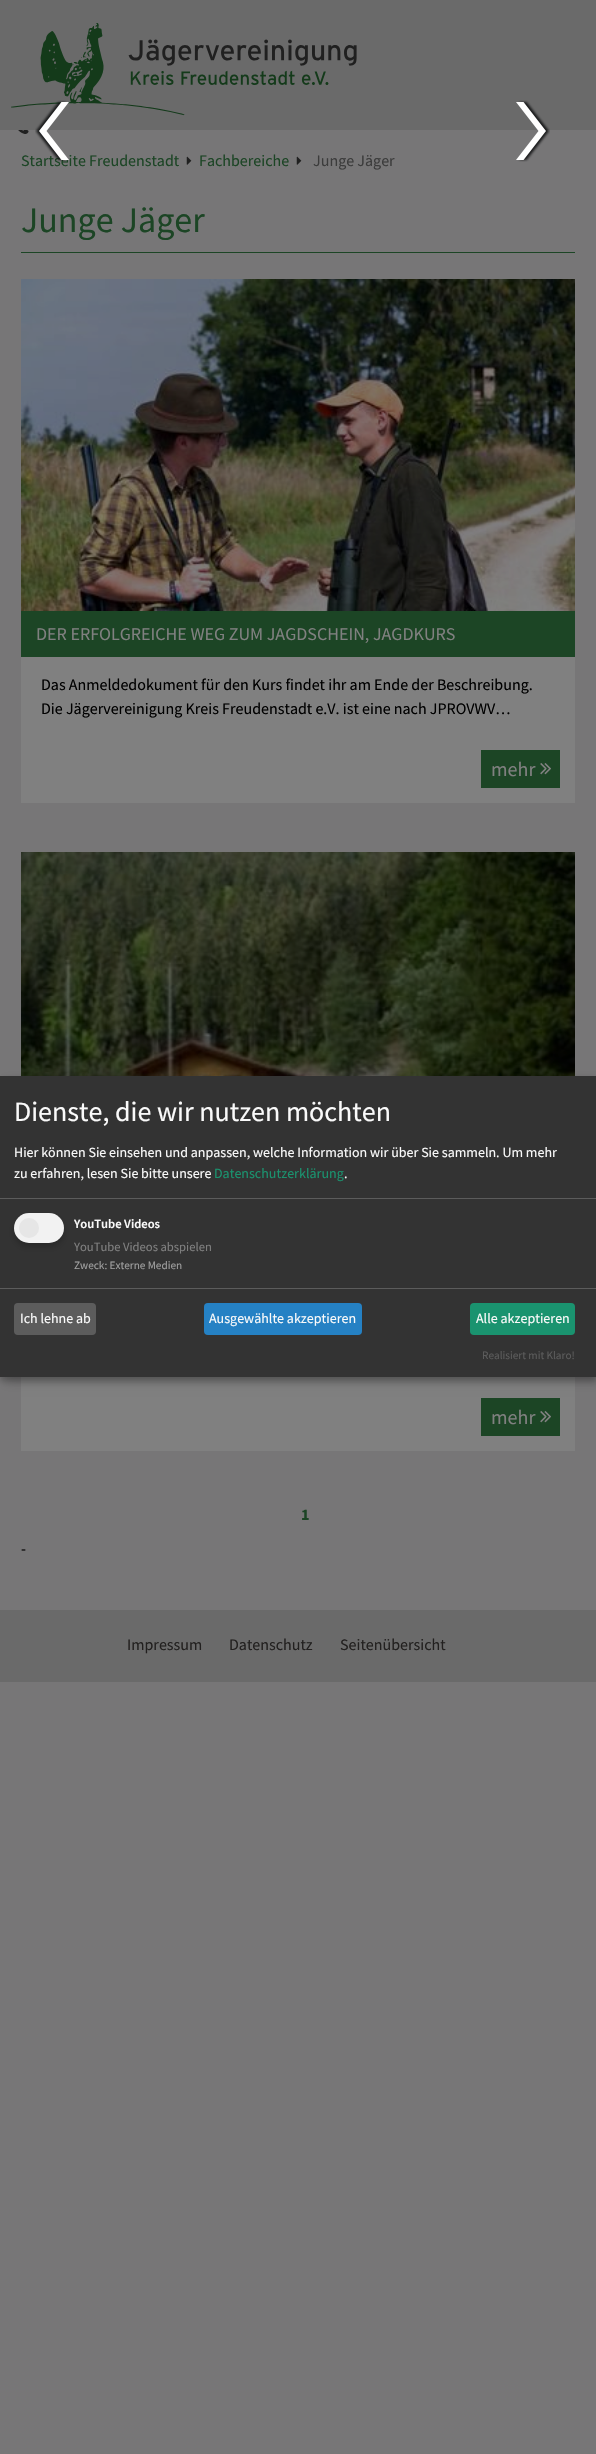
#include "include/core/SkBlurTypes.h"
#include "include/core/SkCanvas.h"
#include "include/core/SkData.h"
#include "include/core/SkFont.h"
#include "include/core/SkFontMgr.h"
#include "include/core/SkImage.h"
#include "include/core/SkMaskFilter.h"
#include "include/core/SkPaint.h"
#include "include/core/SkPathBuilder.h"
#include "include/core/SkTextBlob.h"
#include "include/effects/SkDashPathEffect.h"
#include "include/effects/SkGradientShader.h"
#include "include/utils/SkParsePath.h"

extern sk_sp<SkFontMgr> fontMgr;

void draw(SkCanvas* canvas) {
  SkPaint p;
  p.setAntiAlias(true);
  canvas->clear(SkColorSetRGB(119, 118, 119));
  p.setColor(SkColorSetRGB(106, 106, 106));
  canvas->drawRect(SkRect::MakeLTRB(0, 0, 596, 130), p);
  canvas->drawImageRect(SkImages::DeferredFromEncodedData(SkData::MakeFromFileName("images/1.png")), SkRect::MakeLTRB(11, 23, 357, 116), SkSamplingOptions());
  canvas->drawImageRect(SkImages::DeferredFromEncodedData(SkData::MakeFromFileName("images/2.png")), SkRect::MakeLTRB(18, 130, 29, 134), SkSamplingOptions());
  canvas->drawImageRect(SkImages::DeferredFromEncodedData(SkData::MakeFromFileName("images/4.png")), SkRect::MakeLTRB(516, 100, 550, 162), SkSamplingOptions());
  canvas->drawImageRect(SkImages::DeferredFromEncodedData(SkData::MakeFromFileName("images/5.png")), SkRect::MakeLTRB(186, 156, 192, 165), SkSamplingOptions());
  canvas->drawImageRect(SkImages::DeferredFromEncodedData(SkData::MakeFromFileName("images/5.png")), SkRect::MakeLTRB(296, 156, 302, 165), SkSamplingOptions());
  p.setColor(SkColorSetRGB(28, 69, 37));
  canvas->drawRect(SkRect::MakeLTRB(21, 252, 575, 253), p);
  p.setColor(SkColorSetRGB(128, 128, 128));
  canvas->drawRect(SkRect::MakeLTRB(21, 657, 575, 803), p);
  canvas->drawImageRect(SkImages::DeferredFromEncodedData(SkData::MakeFromFileName("images/6.png")), SkRect::MakeLTRB(21, 279, 575, 611), SkSamplingOptions());
  p.setColor(SkColorSetRGB(28, 69, 37));
  canvas->drawRect(SkRect::MakeLTRB(21, 611, 575, 657), p);
  canvas->drawRect(SkRect::MakeLTRB(481, 750, 560, 788), p);
  canvas->drawImageRect(SkImages::DeferredFromEncodedData(SkData::MakeFromFileName("images/7.png")), SkRect::MakeLTRB(540, 763, 551, 775), SkSamplingOptions());
  p.setColor(SkColorSetRGB(128, 128, 128));
  canvas->drawRect(SkRect::MakeLTRB(21, 1377, 575, 1451), p);
  canvas->drawImageRect(SkImages::DeferredFromEncodedData(SkData::MakeFromFileName("images/8.png")), SkRect::MakeLTRB(21, 852, 575, 1076), SkSamplingOptions());
  p.setColor(SkColorSetRGB(28, 69, 37));
  canvas->drawRect(SkRect::MakeLTRB(481, 1398, 560, 1436), p);
  canvas->drawImageRect(SkImages::DeferredFromEncodedData(SkData::MakeFromFileName("images/7.png")), SkRect::MakeLTRB(540, 1411, 551, 1423), SkSamplingOptions());
  p.setColor(SkColorSetARGB(48, 0, 0, 0));
  p.setMaskFilter(SkMaskFilter::MakeBlur(kNormal_SkBlurStyle, 5));
  canvas->drawRect(SkRect::MakeLTRB(5, 1081, 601, 1382), p);
  p.setMaskFilter(nullptr);
  p.setColor(SkColorSetARGB(51, 0, 0, 0));
  p.setMaskFilter(SkMaskFilter::MakeBlur(kNormal_SkBlurStyle, 3));
  canvas->drawRect(SkRect::MakeLTRB(0, 1080, 596, 1381), p);
  p.setMaskFilter(nullptr);
  p.setColor(SkColorSetRGB(51, 51, 51));
  canvas->drawRect(SkRect::MakeLTRB(0, 1076, 596, 1377), p);
  p.setColor(SkColorSetRGB(92, 92, 92));
  canvas->drawRect(SkRect::MakeLTRB(0, 1198, 596, 1199), p);
  p.setColor(SkColorSetARGB(51, 0, 0, 0));
  p.setMaskFilter(SkMaskFilter::MakeBlur(kNormal_SkBlurStyle, 3));
  canvas->drawRoundRect(SkRect::MakeLTRB(14, 1217, 64, 1247), 15, 15, p);
  p.setMaskFilter(nullptr);
  p.setColor(SkColorSetRGB(242, 242, 242));
  canvas->drawRoundRect(SkRect::MakeLTRB(14, 1213, 64, 1243), 15, 15, p);
  p.setColor(SkColorSetRGB(230, 230, 230));
  canvas->drawCircle(29, 1228, 10, p);
  p.setColor(SkColorSetRGB(92, 92, 92));
  canvas->drawRect(SkRect::MakeLTRB(0, 1288, 596, 1289), p);
  canvas->drawRoundRect(SkRect::MakeLTRB(14, 1303, 96, 1335), 4, 4, p);
  p.setColor(SkColorSetRGB(37, 129, 196));
  canvas->drawRoundRect(SkRect::MakeLTRB(204, 1303, 362, 1335), 4, 4, p);
  p.setColor(SkColorSetRGB(26, 147, 111));
  canvas->drawRoundRect(SkRect::MakeLTRB(470, 1303, 575, 1335), 4, 4, p);
  p.setColor(SkColorSetRGB(106, 106, 106));
  canvas->drawRect(SkRect::MakeLTRB(0, 1610, 596, 1682), p);
  SkFont font1(fontMgr->matchFamilyStyle("Source Sans Pro", SkFontStyle::Normal()), 16);
  font1.setSubpixel(true);
  p.setColor(SkColorSetRGB(28, 69, 37));
  canvas->drawString("Startseite Freudenstadt", 21, 166, font1, p);
  canvas->drawImageRect(SkImages::DeferredFromEncodedData(SkData::MakeFromFileName("images/3.png")), SkRect::MakeLTRB(35, 100, 69, 162), SkSamplingOptions());
  canvas->drawString("Fachbereiche", 199, 166, font1, p);
  p.setColor(SkColorSetRGB(60, 60, 60));
  canvas->drawString("Junge Jäger", 313, 166, font1, p);
  SkFont font2(fontMgr->matchFamilyStyle("Source Sans Pro", SkFontStyle::Normal()), 36);
  font2.setSubpixel(true);
  p.setColor(SkColorSetRGB(28, 69, 37));
  canvas->drawString("Junge Jäger", 21, 232, font2, p);
  SkFont font3(fontMgr->matchFamilyStyle("Source Sans Pro", SkFontStyle::Normal()), 18);
  font3.setSubpixel(true);
  p.setColor(SkColorSetRGB(128, 128, 128));
  canvas->drawString("DER ERFOLGREICHE WEG ZUM JAGDSCHEIN, JAGDKURS", 36, 640, font3, p);
  p.setColor(SK_ColorBLACK);
  canvas->drawString("Das Anmeldedokument für den Kurs findet ihr am Ende der Beschreibung.", 41, 690, font1, p);
  canvas->drawString("Die Jägervereinigung Kreis Freudenstadt e.V. ist eine nach JPROVWV…", 41, 714, font1, p);
  SkFont font4(fontMgr->matchFamilyStyle("Source Sans Pro", SkFontStyle::Normal()), 20);
  font4.setSubpixel(true);
  p.setColor(SkColorSetRGB(128, 128, 128));
  canvas->drawString("mehr", 491, 776, font4, p);
  canvas->drawString("mehr", 491, 1424, font4, p);
  SkFont font5(fontMgr->matchFamilyStyle("Source Sans Pro", SkFontStyle::Bold()), 16);
  font5.setSubpixel(true);
  p.setColor(SkColorSetRGB(28, 69, 37));
  canvas->drawString("1", 301, 1520, font5, p);
  p.setColor(SK_ColorBLACK);
  canvas->drawString("-", 21, 1554, font1, p);
  SkFont font6(fontMgr->matchFamilyStyle("Source Sans Pro", SkFontStyle::Normal()), 28);
  font6.setSubpixel(true);
  p.setColor(SkColorSetRGB(250, 250, 250));
  canvas->drawString("Dienste, die wir nutzen möchten", 14, 1121, font6, p);
  SkFont font7(fontMgr->matchFamilyStyle("Source Sans Pro", SkFontStyle::Normal()), 14);
  font7.setSubpixel(true);
  canvas->drawString("Hier können Sie einsehen und anpassen, welche Information wir über Sie sammeln. Um mehr", 14, 1157, font7, p);
  canvas->drawString("zu erfahren, lesen Sie bitte unsere", 14, 1178, font7, p);
  p.setColor(SkColorSetRGB(26, 147, 111));
  canvas->drawString("Datenschutzerklärung", 214, 1178, font7, p);
  p.setColor(SkColorSetRGB(250, 250, 250));
  canvas->drawString(".", 344, 1178, font7, p);
  SkFont font8(fontMgr->matchFamilyStyle("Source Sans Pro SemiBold", SkFontStyle(600, SkFontStyle::kNormal_Width, SkFontStyle::kUpright_Slant)), 12.6f);
  font8.setSubpixel(true);
  canvas->drawString("YouTube Videos", 74, 1228, font8, p);
  SkFont font9(fontMgr->matchFamilyStyle("Source Sans Pro", SkFontStyle::Normal()), 12.6f);
  font9.setSubpixel(true);
  p.setColor(SkColorSetRGB(128, 128, 128));
  canvas->drawString("YouTube Videos abspielen", 74, 1251, font9, p);
  SkFont font10(fontMgr->matchFamilyStyle("Source Sans Pro", SkFontStyle::Normal()), 11.25f);
  font10.setSubpixel(true);
  p.setColor(SkColorSetRGB(160, 160, 160));
  canvas->drawString("Zweck: Externe Medien", 74, 1269, font10, p);
  p.setColor(SkColorSetRGB(250, 250, 250));
  canvas->drawString("Ich lehne ab", 20, 1323, font7, p);
  canvas->drawString("Ausgewählte akzeptieren", 209, 1323, font7, p);
  canvas->drawString("Alle akzeptieren", 476, 1323, font7, p);
  p.setColor(SkColorSetRGB(92, 92, 92));
  canvas->drawString("Realisiert mit Klaro!", 482, 1359, font10, p);
  p.setColor(SkColorSetRGB(34, 32, 31));
  canvas->drawString("Impressum", 127, 1650, font1, p);
  canvas->drawString("Datenschutz", 229, 1650, font1, p);
  canvas->drawString("Seitenübersicht", 340, 1650, font1, p);
}
